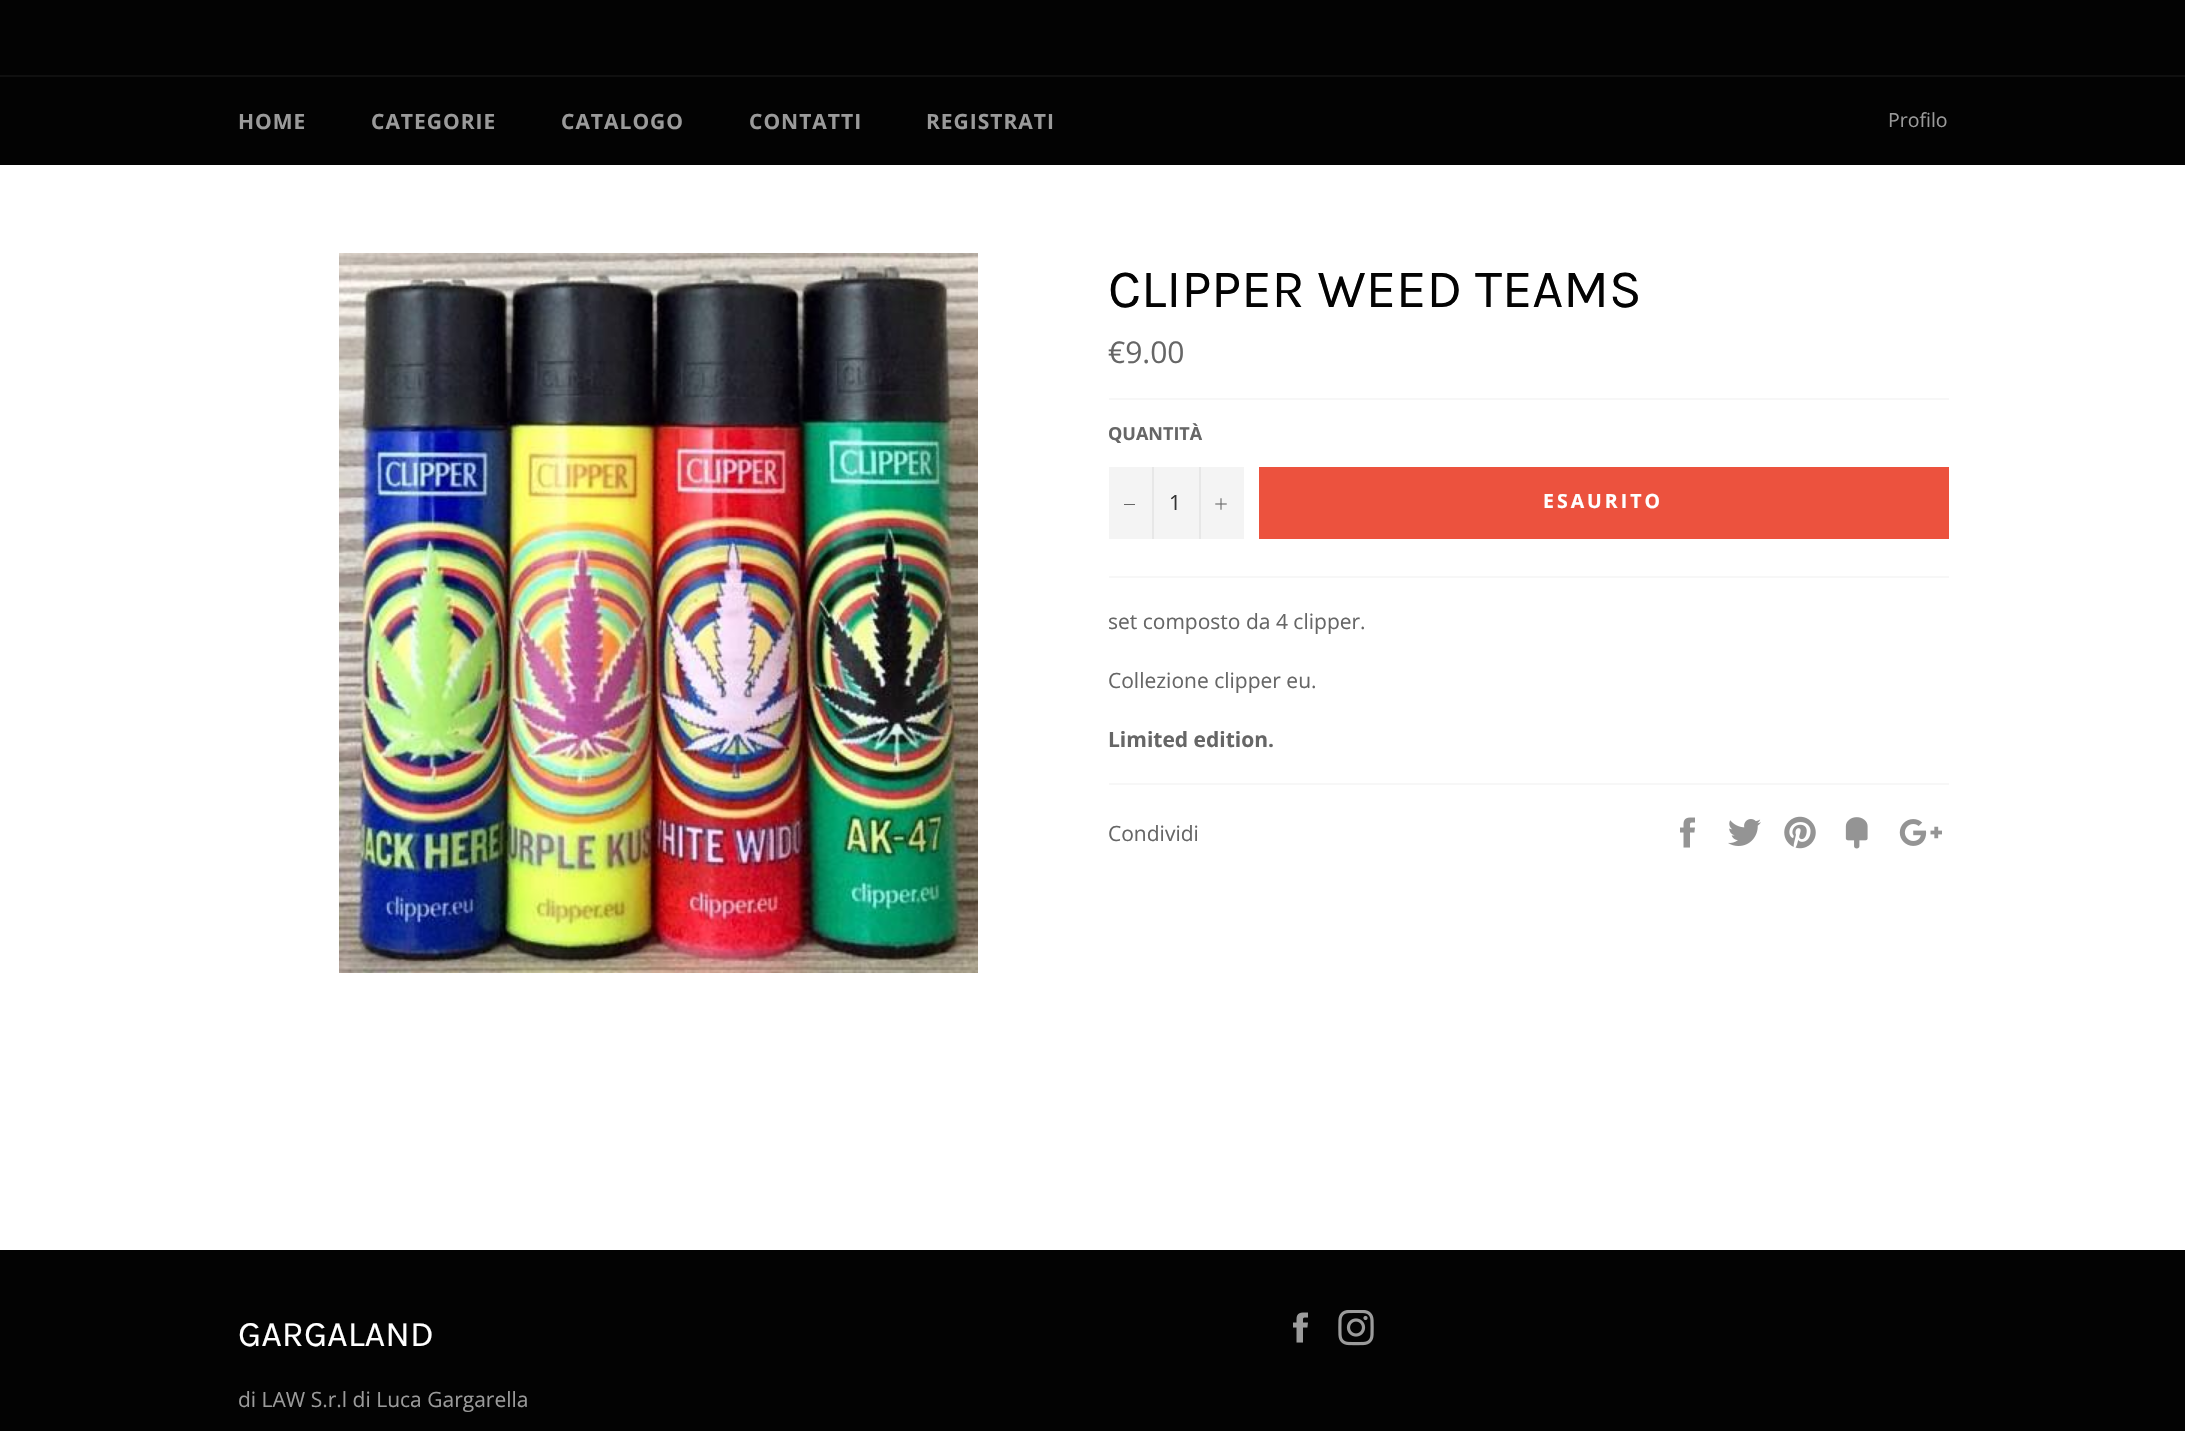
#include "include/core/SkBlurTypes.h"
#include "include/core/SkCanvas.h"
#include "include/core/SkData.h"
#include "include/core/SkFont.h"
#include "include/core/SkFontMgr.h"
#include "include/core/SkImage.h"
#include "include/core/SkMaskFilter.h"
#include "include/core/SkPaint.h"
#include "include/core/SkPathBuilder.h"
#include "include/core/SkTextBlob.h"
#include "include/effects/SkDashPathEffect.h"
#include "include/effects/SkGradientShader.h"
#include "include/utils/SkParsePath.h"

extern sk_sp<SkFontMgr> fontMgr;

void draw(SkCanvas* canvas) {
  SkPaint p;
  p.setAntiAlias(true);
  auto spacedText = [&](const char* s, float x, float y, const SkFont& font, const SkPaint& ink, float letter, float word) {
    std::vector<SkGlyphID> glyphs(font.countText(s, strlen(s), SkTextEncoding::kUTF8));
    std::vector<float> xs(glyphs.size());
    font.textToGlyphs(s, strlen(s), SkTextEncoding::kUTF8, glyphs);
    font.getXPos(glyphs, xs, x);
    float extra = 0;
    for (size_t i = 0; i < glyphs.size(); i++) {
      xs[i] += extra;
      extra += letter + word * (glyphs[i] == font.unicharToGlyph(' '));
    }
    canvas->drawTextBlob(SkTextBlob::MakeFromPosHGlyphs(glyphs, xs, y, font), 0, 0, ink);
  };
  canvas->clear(SK_ColorWHITE);
  p.setColor(SkColorSetRGB(3, 3, 3));
  canvas->drawRect(SkRect::MakeLTRB(0, 0, 2185, 75), p);
  canvas->drawRect(SkRect::MakeLTRB(0, 77, 2185, 165), p);
  p.setColor(SkColorSetRGB(16, 16, 16));
  canvas->drawRect(SkRect::MakeLTRB(0, 75, 2185, 77), p);
  canvas->drawImageRect(SkImages::DeferredFromEncodedData(SkData::MakeFromFileName("images/1.png")), SkRect::MakeLTRB(339, 253, 978, 973), SkSamplingOptions());
  p.setColor(SkColorSetRGB(247, 247, 247));
  canvas->drawRect(SkRect::MakeLTRB(1109, 398, 1949, 400), p);
  p.setColor(SkColorSetRGB(244, 244, 244));
  canvas->drawRect(SkRect::MakeLTRB(1109, 467, 1244, 539), p);
  p.setColor(SkColorSetRGB(231, 231, 231));
  canvas->drawRect(SkRect::MakeLTRB(1152, 467, 1154, 539), p);
  p.setColor(SkColorSetRGB(102, 102, 102));
  canvas->drawRect(SkRect::MakeLTRB(1124, 504, 1135, 505), p);
  p.setColor(SkColorSetRGB(231, 231, 231));
  canvas->drawRect(SkRect::MakeLTRB(1199, 467, 1201, 539), p);
  canvas->drawImageRect(SkImages::DeferredFromEncodedData(SkData::MakeFromFileName("images/2.png")), SkRect::MakeLTRB(1215, 498, 1227, 510), SkSamplingOptions());
  p.setColor(SkColorSetRGB(236, 82, 62));
  canvas->drawRect(SkRect::MakeLTRB(1259, 467, 1949, 539), p);
  p.setColor(SkColorSetRGB(247, 247, 247));
  canvas->drawRect(SkRect::MakeLTRB(1109, 576, 1949, 578), p);
  canvas->drawRect(SkRect::MakeLTRB(1109, 783, 1949, 785), p);
  canvas->drawImageRect(SkImages::DeferredFromEncodedData(SkData::MakeFromFileName("images/3.png")), SkRect::MakeLTRB(1680, 817, 1695, 848), SkSamplingOptions());
  canvas->drawImageRect(SkImages::DeferredFromEncodedData(SkData::MakeFromFileName("images/4.png")), SkRect::MakeLTRB(1728, 819, 1761, 846), SkSamplingOptions());
  canvas->drawImageRect(SkImages::DeferredFromEncodedData(SkData::MakeFromFileName("images/5.png")), SkRect::MakeLTRB(1784, 816, 1816, 849), SkSamplingOptions());
  canvas->drawImageRect(SkImages::DeferredFromEncodedData(SkData::MakeFromFileName("images/6.png")), SkRect::MakeLTRB(1845, 817, 1868, 849), SkSamplingOptions());
  canvas->drawImageRect(SkImages::DeferredFromEncodedData(SkData::MakeFromFileName("images/7.png")), SkRect::MakeLTRB(1899, 819, 1942, 846), SkSamplingOptions());
  p.setColor(SkColorSetRGB(3, 3, 3));
  canvas->drawRect(SkRect::MakeLTRB(0, 1250, 2185, 1431), p);
  canvas->drawImageRect(SkImages::DeferredFromEncodedData(SkData::MakeFromFileName("images/8.png")), SkRect::MakeLTRB(1293, 1312, 1308, 1343), SkSamplingOptions());
  canvas->drawImageRect(SkImages::DeferredFromEncodedData(SkData::MakeFromFileName("images/9.png")), SkRect::MakeLTRB(1338, 1310, 1374, 1346), SkSamplingOptions());
  SkFont font1(fontMgr->matchFamilyStyle("Open Sans", SkFontStyle::Bold()), 21);
  font1.setSubpixel(true);
  p.setColor(SkColorSetRGB(154, 154, 154));
  spacedText("HOME", 238, 129, font1, p, 1, 0);
  spacedText("CATEGORIE", 371, 129, font1, p, 1, 0);
  spacedText("CATALOGO", 561, 129, font1, p, 1, 0);
  spacedText("CONTATTI", 749, 129, font1, p, 1, 0);
  spacedText("REGISTRATI", 926, 129, font1, p, 1, 0);
  SkFont font2(fontMgr->matchFamilyStyle("Open Sans", SkFontStyle::Normal()), 19.5f);
  font2.setSubpixel(true);
  canvas->drawString("Profilo", 1888, 127, font2, p);
  SkFont font3(fontMgr->matchFamilyStyle("Karla", SkFontStyle::Normal()), 54);
  font3.setSubpixel(true);
  p.setColor(SkColorSetRGB(3, 3, 3));
  canvas->drawString("CLIPPER WEED TEAMS", 1108, 307, font3, p);
  SkFont font4(fontMgr->matchFamilyStyle("Open Sans", SkFontStyle::Normal()), 30);
  font4.setSubpixel(true);
  p.setColor(SkColorSetRGB(102, 102, 102));
  canvas->drawString("€9.00", 1108, 363, font4, p);
  SkFont font5(fontMgr->matchFamilyStyle("Open Sans", SkFontStyle::Bold()), 18);
  font5.setSubpixel(true);
  canvas->drawString("QUANTITÀ", 1108, 440, font5, p);
  SkFont font6(fontMgr->matchFamilyStyle("Open Sans", SkFontStyle::Normal()), 21);
  font6.setSubpixel(true);
  p.setColor(SkColorSetRGB(51, 51, 51));
  canvas->drawString("1", 1169, 510, font6, p);
  SkFont font7(fontMgr->matchFamilyStyle("Open Sans", SkFontStyle::Bold()), 19.5f);
  font7.setSubpixel(true);
  p.setColor(SK_ColorWHITE);
  spacedText("ESAURITO", 1543, 508, font7, p, 3, 0);
  p.setColor(SkColorSetRGB(102, 102, 102));
  canvas->drawString("set composto da 4 clipper.", 1108, 629, font6, p);
  canvas->drawString("Collezione clipper eu.", 1108, 688, font6, p);
  canvas->drawString("Limited edition.", 1108, 747, font1, p);
  canvas->drawString("Condividi", 1108, 841, font6, p);
  SkFont font8(fontMgr->matchFamilyStyle("Karla", SkFontStyle::Normal()), 36);
  font8.setSubpixel(true);
  p.setColor(SK_ColorWHITE);
  canvas->drawString("GARGALAND", 238, 1346, font8, p);
  p.setColor(SkColorSetRGB(154, 154, 154));
  canvas->drawString("di LAW S.r.l di Luca Gargarella", 238, 1407, font6, p);
}
